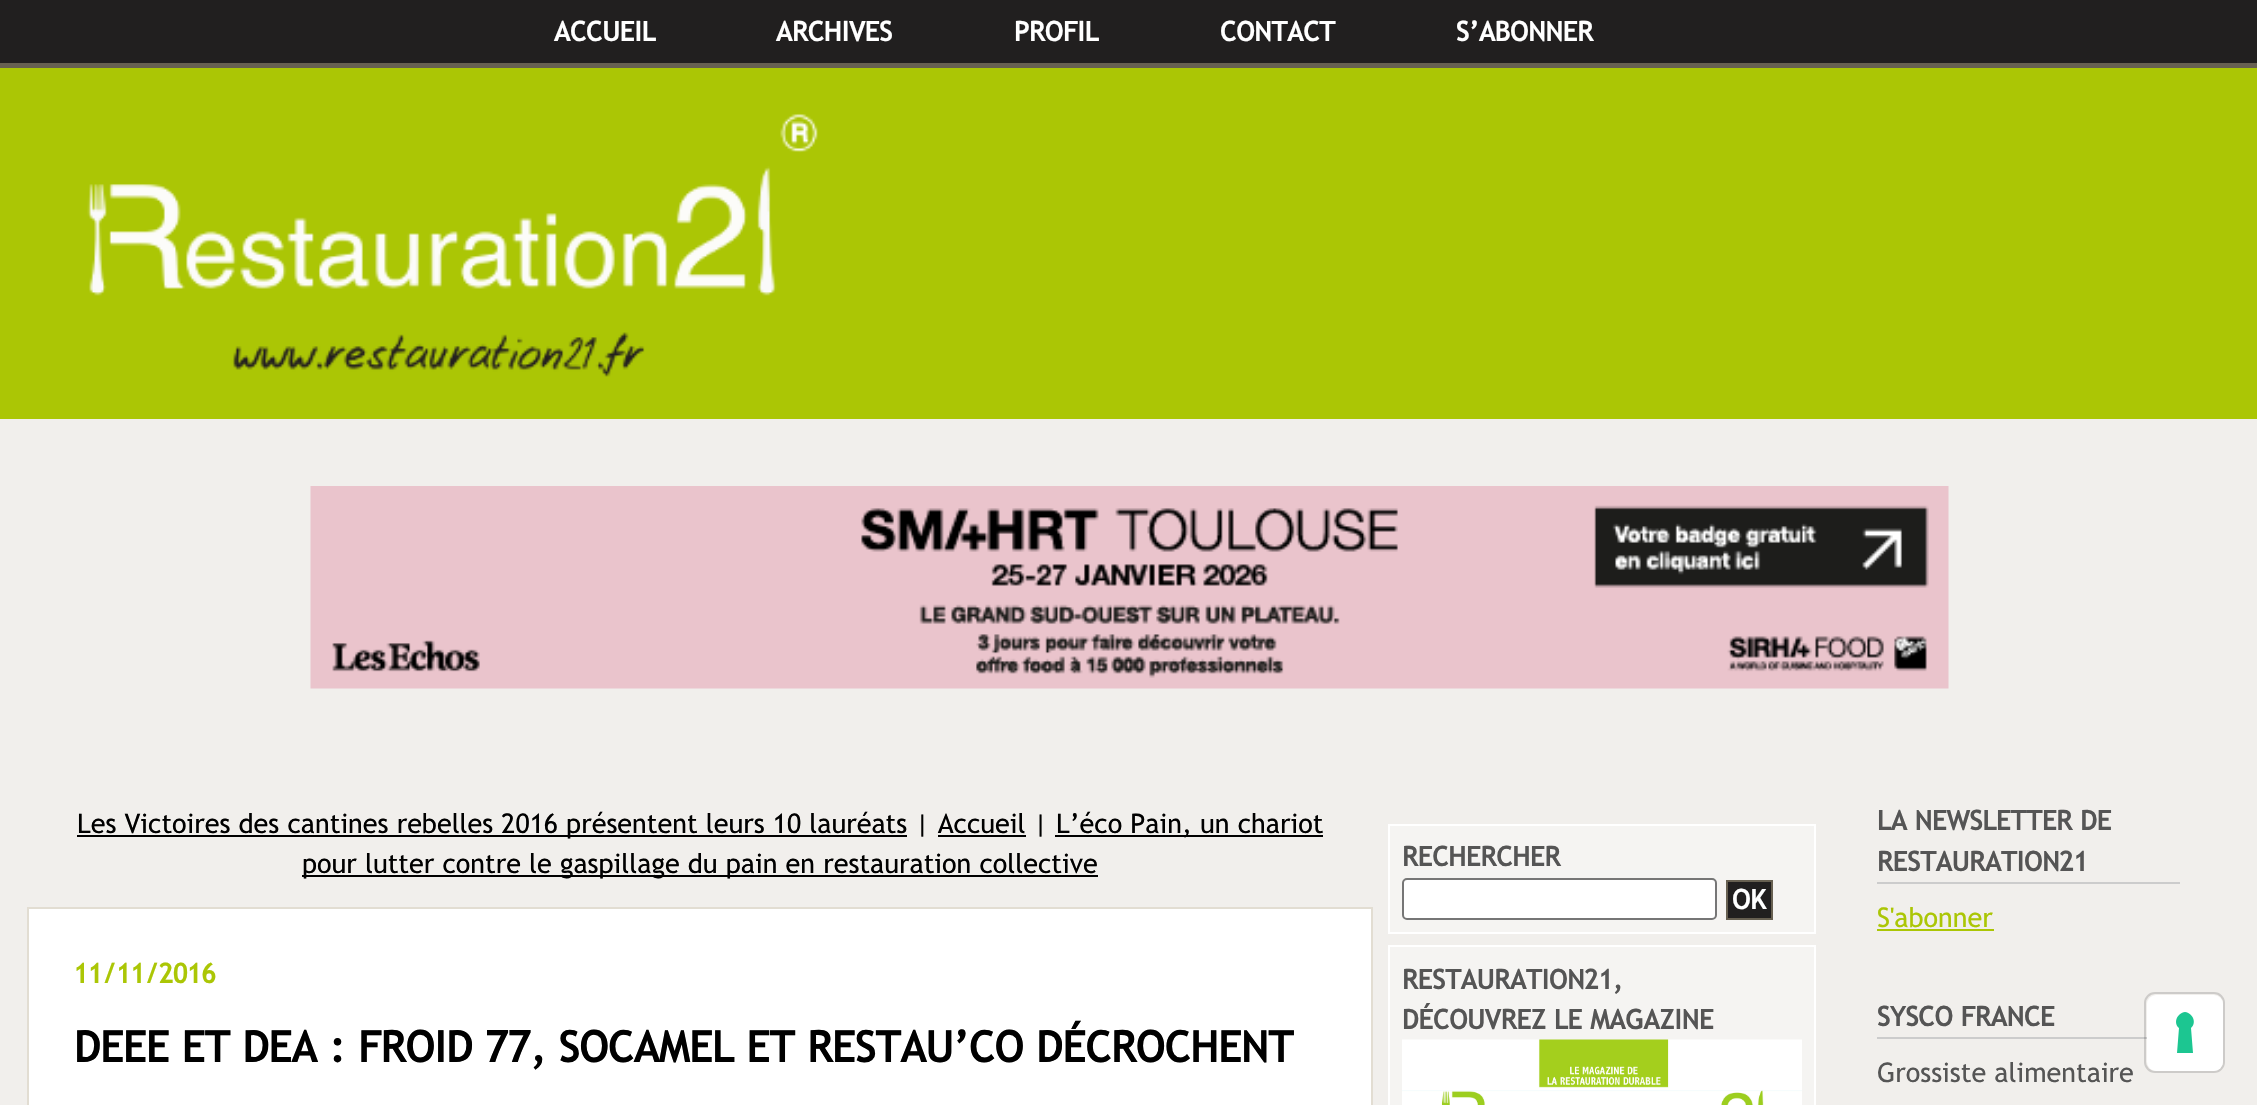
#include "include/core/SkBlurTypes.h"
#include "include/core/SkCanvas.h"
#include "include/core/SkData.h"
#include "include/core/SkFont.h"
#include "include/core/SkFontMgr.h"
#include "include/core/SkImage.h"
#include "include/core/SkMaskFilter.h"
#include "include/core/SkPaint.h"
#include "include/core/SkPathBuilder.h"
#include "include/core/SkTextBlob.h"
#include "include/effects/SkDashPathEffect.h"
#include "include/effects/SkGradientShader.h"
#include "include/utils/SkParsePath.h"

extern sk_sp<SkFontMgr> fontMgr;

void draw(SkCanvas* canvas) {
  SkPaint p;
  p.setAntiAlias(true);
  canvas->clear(SkColorSetRGB(241, 239, 236));
  p.setColor(SkColorSetRGB(33, 31, 31));
  canvas->drawRect(SkRect::MakeLTRB(0, 0, 2257, 63), p);
  p.setColor(SkColorSetRGB(171, 198, 5));
  canvas->drawRect(SkRect::MakeLTRB(0, 68, 2257, 419), p);
  p.setColor(SkColorSetRGB(103, 96, 81));
  canvas->drawRect(SkRect::MakeLTRB(0, 63, 2257, 68), p);
  canvas->drawImageRect(SkImages::DeferredFromEncodedData(SkData::MakeFromFileName("images/1.png")), SkRect::MakeLTRB(87, 113, 818, 377), SkSamplingOptions());
  canvas->drawImageRect(SkImages::DeferredFromEncodedData(SkData::MakeFromFileName("images/2.png")), SkRect::MakeLTRB(310, 486, 1949, 689), SkSamplingOptions());
  p.setColor(SK_ColorBLACK);
  canvas->drawRect(SkRect::MakeLTRB(77, 835, 907, 837), p);
  canvas->drawRect(SkRect::MakeLTRB(1055, 835, 1323, 837), p);
  canvas->drawRect(SkRect::MakeLTRB(938, 835, 1026, 837), p);
  canvas->drawRect(SkRect::MakeLTRB(302, 875, 1098, 877), p);
  p.setColor(SK_ColorWHITE);
  canvas->drawRect(SkRect::MakeLTRB(28, 908, 1372, 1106), p);
  p.setStyle(SkPaint::kStroke_Style);
  p.setStrokeWidth(2);
  p.setColor(SkColorSetRGB(226, 221, 210));
  canvas->drawRect(SkRect::MakeLTRB(28, 908, 1372, 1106), p);
  p.setStyle(SkPaint::kFill_Style);
  p.setColor(SkColorSetRGB(245, 244, 242));
  canvas->drawRect(SkRect::MakeLTRB(1389, 825, 1815, 933), p);
  p.setStyle(SkPaint::kStroke_Style);
  p.setColor(SK_ColorWHITE);
  canvas->drawRect(SkRect::MakeLTRB(1389, 825, 1815, 933), p);
  p.setStyle(SkPaint::kFill_Style);
  canvas->drawRoundRect(SkRect::MakeLTRB(1403, 879, 1716, 919), 4, 4, p);
  p.setStyle(SkPaint::kStroke_Style);
  p.setColor(SkColorSetRGB(118, 118, 118));
  canvas->drawRoundRect(SkRect::MakeLTRB(1403, 879, 1716, 919), 4, 4, p);
  p.setStyle(SkPaint::kFill_Style);
  p.setColor(SkColorSetRGB(33, 31, 31));
  canvas->drawRect(SkRect::MakeLTRB(1727, 881, 1772, 919), p);
  p.setStyle(SkPaint::kStroke_Style);
  p.setColor(SkColorSetRGB(103, 96, 81));
  canvas->drawRect(SkRect::MakeLTRB(1727, 881, 1772, 919), p);
  p.setStyle(SkPaint::kFill_Style);
  p.setColor(SkColorSetRGB(245, 244, 242));
  canvas->drawRect(SkRect::MakeLTRB(1389, 946, 1815, 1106), p);
  p.setStyle(SkPaint::kStroke_Style);
  p.setColor(SK_ColorWHITE);
  canvas->drawRect(SkRect::MakeLTRB(1389, 946, 1815, 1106), p);
  canvas->drawImageRect(SkImages::DeferredFromEncodedData(SkData::MakeFromFileName("images/3.png")), SkRect::MakeLTRB(1402, 1039, 1802, 1105), SkSamplingOptions());
  p.setStyle(SkPaint::kFill_Style);
  p.setColor(SkColorSetRGB(204, 204, 204));
  canvas->drawRect(SkRect::MakeLTRB(1877, 882, 2180, 884), p);
  p.setColor(SkColorSetRGB(171, 198, 5));
  canvas->drawRect(SkRect::MakeLTRB(1877, 929, 1994, 931), p);
  p.setColor(SkColorSetRGB(204, 204, 204));
  canvas->drawRect(SkRect::MakeLTRB(1877, 1037, 2147, 1039), p);
  p.setStyle(SkPaint::kStroke_Style);
  p.setColor(SkColorSetARGB(38, 0, 0, 0));
  canvas->drawRoundRect(SkRect::MakeLTRB(2145, 993, 2224, 1072), 10, 10, p);
  p.setStyle(SkPaint::kFill_Style);
  p.setColor(SK_ColorWHITE);
  canvas->drawRoundRect(SkRect::MakeLTRB(2147, 995, 2223, 1071), 9, 9, p);
  p.setColor(SkColorSetRGB(28, 198, 145));
  canvas->drawPath(SkPathBuilder(SkPathFillType::kEvenOdd).moveTo(2185, 1012).cubicTo(2193, 1013, 2197, 1023, 2191, 1028).lineTo(2193, 1053).lineTo(2177, 1053).lineTo(2179, 1028).cubicTo(2173, 1023, 2177, 1013, 2185, 1012).close().detach(), p);
  SkFont font1(fontMgr->matchFamilyStyle("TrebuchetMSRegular", SkFontStyle::Bold()), 27);
  font1.setSubpixel(true);
  p.setColor(SK_ColorWHITE);
  canvas->drawString("ACCUEIL", 554, 41, font1, p);
  canvas->drawString("ARCHIVES", 776, 41, font1, p);
  canvas->drawString("PROFIL", 1014, 41, font1, p);
  canvas->drawString("CONTACT", 1220, 41, font1, p);
  canvas->drawString("S’ABONNER", 1456, 41, font1, p);
  SkFont font2(fontMgr->matchFamilyStyle("TrebuchetMSRegular", SkFontStyle::Normal()), 27);
  font2.setSubpixel(true);
  p.setColor(SK_ColorBLACK);
  canvas->drawString("Les Victoires des cantines rebelles 2016 présentent leurs 10 lauréats | Accueil |", 77, 833, font2, p);
  canvas->drawString("L’éco Pain, un chariot", 1056, 833, font2, p);
  canvas->drawString("pour lutter contre le gaspillage du pain en restauration collective", 302, 873, font2, p);
  p.setColor(SkColorSetRGB(171, 198, 5));
  canvas->drawString("11/11/2016", 74, 983, font1, p);
  SkFont font3(fontMgr->matchFamilyStyle("TrebuchetMSRegular", SkFontStyle::Bold()), 42.75f);
  font3.setSubpixel(true);
  p.setColor(SK_ColorBLACK);
  canvas->drawString("DEEE ET DEA : FROID 77, SOCAMEL ET RESTAU’CO DÉCROCHENT", 74, 1062, font3, p);
  p.setColor(SkColorSetRGB(85, 85, 85));
  canvas->drawString("RECHERCHER", 1402, 866, font1, p);
  p.setColor(SK_ColorWHITE);
  canvas->drawString("OK", 1732, 909, font1, p);
  p.setColor(SkColorSetRGB(85, 85, 85));
  canvas->drawString("RESTAURATION21,", 1402, 989, font1, p);
  canvas->drawString("DÉCOUVREZ LE MAGAZINE", 1402, 1029, font1, p);
  canvas->drawString("LA NEWSLETTER DE", 1877, 830, font1, p);
  canvas->drawString("RESTAURATION21", 1877, 871, font1, p);
  p.setColor(SkColorSetRGB(171, 198, 5));
  canvas->drawString("S'abonner", 1877, 927, font2, p);
  p.setColor(SkColorSetRGB(85, 85, 85));
  canvas->drawString("SYSCO FRANCE", 1877, 1026, font1, p);
  canvas->drawString("Grossiste alimentaire", 1877, 1082, font2, p);
}
